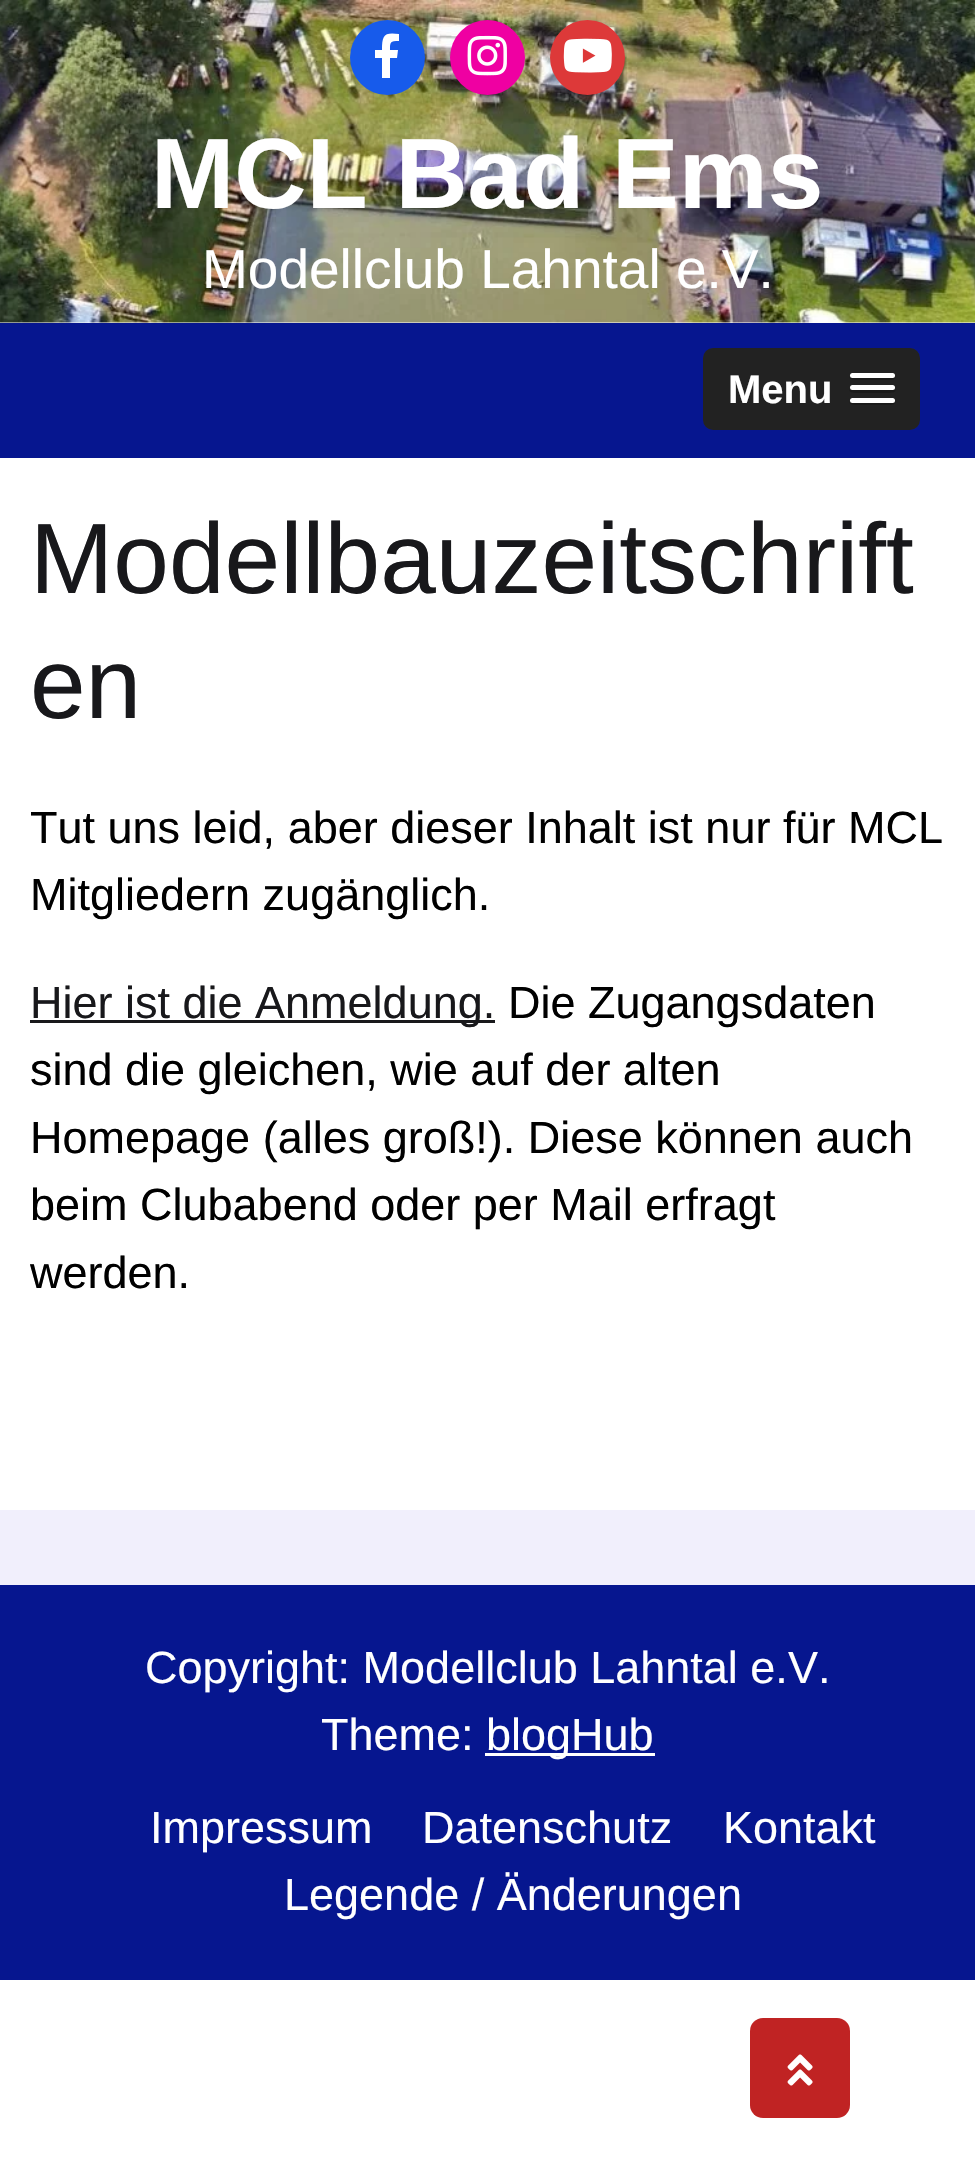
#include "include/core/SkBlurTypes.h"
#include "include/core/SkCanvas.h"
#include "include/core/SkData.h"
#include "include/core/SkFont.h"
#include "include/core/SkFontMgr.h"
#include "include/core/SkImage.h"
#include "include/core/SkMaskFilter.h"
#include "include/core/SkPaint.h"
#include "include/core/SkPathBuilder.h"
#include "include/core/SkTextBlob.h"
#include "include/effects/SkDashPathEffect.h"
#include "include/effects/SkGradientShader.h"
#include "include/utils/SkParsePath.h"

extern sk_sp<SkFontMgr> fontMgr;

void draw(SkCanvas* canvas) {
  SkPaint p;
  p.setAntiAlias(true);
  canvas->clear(SK_ColorWHITE);
  canvas->drawImageRect(SkImages::DeferredFromEncodedData(SkData::MakeFromFileName("images/1.png")), SkRect::MakeLTRB(0, 0, 975, 323), SkSamplingOptions());
  p.setColor(SkColorSetRGB(23, 91, 235));
  canvas->drawCircle(387.5f, 57.5f, 37.5f, p);
  p.setColor(SK_ColorWHITE);
  canvas->drawPath(SkPathBuilder().moveTo(397, 58).lineTo(390, 58).lineTo(390, 78).lineTo(382, 78).lineTo(382, 58).lineTo(375, 58).lineTo(375, 50).lineTo(382, 50).cubicTo(382, 35, 384, 32, 399, 34).lineTo(399, 41).cubicTo(390, 41, 390, 42, 390, 50).lineTo(398, 50).close().detach(), p);
  p.setColor(SkColorSetRGB(239, 0, 162));
  canvas->drawCircle(487.5f, 57.5f, 37.5f, p);
  canvas->drawImageRect(SkImages::DeferredFromEncodedData(SkData::MakeFromFileName("images/2.png")), SkRect::MakeLTRB(467, 35, 507, 76), SkSamplingOptions());
  p.setColor(SkColorSetRGB(221, 57, 57));
  canvas->drawCircle(587.5f, 57.5f, 37.5f, p);
  canvas->drawImageRect(SkImages::DeferredFromEncodedData(SkData::MakeFromFileName("images/3.png")), SkRect::MakeLTRB(563, 38, 612, 73), SkSamplingOptions());
  p.setColor(SkColorSetRGB(6, 22, 143));
  canvas->drawRect(SkRect::MakeLTRB(0, 323, 975, 458), p);
  p.setColor(SkColorSetRGB(34, 34, 34));
  canvas->drawRoundRect(SkRect::MakeLTRB(703, 348, 920, 430), 10, 10, p);
  p.setColor(SkColorSetRGB(26, 26, 26));
  canvas->drawPath(SkPathBuilder().moveTo(850, 376).cubicTo(847, 381, 859, 380, 859, 380).lineTo(886, 380).cubicTo(886, 380, 898, 381, 895, 376).cubicTo(894, 377, 893, 378, 892, 378).lineTo(852, 378).cubicTo(852, 378, 851, 377, 850, 376).close().detach(), p);
  p.setColor(SK_ColorWHITE);
  canvas->drawRoundRect(SkRect::MakeLTRB(850, 373, 895, 378), 2.5f, 2.5f, p);
  p.setColor(SkColorSetRGB(26, 26, 26));
  canvas->drawPath(SkPathBuilder().moveTo(850, 389).cubicTo(847, 393, 855, 393, 859, 393).lineTo(886, 393).cubicTo(890, 393, 898, 393, 895, 389).lineTo(893, 390).lineTo(852, 390).close().detach(), p);
  p.setColor(SK_ColorWHITE);
  canvas->drawRoundRect(SkRect::MakeLTRB(850, 385, 895, 390), 2.5f, 2.5f, p);
  p.setColor(SkColorSetRGB(26, 26, 26));
  canvas->drawPath(SkPathBuilder().moveTo(850, 401).cubicTo(847, 406, 859, 405, 859, 405).lineTo(886, 405).cubicTo(886, 405, 898, 406, 895, 401).cubicTo(894, 402, 893, 402, 892, 402).lineTo(852, 402).cubicTo(852, 402, 851, 402, 850, 401).close().detach(), p);
  p.setColor(SK_ColorWHITE);
  canvas->drawRoundRect(SkRect::MakeLTRB(850, 398, 895, 403), 2.5f, 2.5f, p);
  p.setColor(SkColorSetRGB(24, 24, 27));
  canvas->drawRect(SkRect::MakeLTRB(30, 1020, 495, 1023), p);
  p.setColor(SkColorSetRGB(241, 239, 252));
  canvas->drawRect(SkRect::MakeLTRB(0, 1510, 975, 1585), p);
  p.setColor(SkColorSetRGB(6, 22, 143));
  canvas->drawRect(SkRect::MakeLTRB(0, 1585, 975, 1980), p);
  p.setColor(SK_ColorWHITE);
  canvas->drawRect(SkRect::MakeLTRB(485, 1753, 655, 1756), p);
  p.setColor(SkColorSetRGB(192, 35, 35));
  canvas->drawRoundRect(SkRect::MakeLTRB(750, 2018, 850, 2118), 13, 13, p);
  canvas->drawImageRect(SkImages::DeferredFromEncodedData(SkData::MakeFromFileName("images/4.png")), SkRect::MakeLTRB(787, 2054, 813, 2086), SkSamplingOptions());
  SkFont font1(fontMgr->matchFamilyStyle("Liberation Sans", SkFontStyle::Bold()), 100);
  font1.setSubpixel(true);
  p.setColor(SK_ColorWHITE);
  canvas->drawString("MCL Bad Ems", 151, 208, font1, p);
  SkFont font2(fontMgr->matchFamilyStyle("Liberation Sans", SkFontStyle::Normal()), 55);
  font2.setSubpixel(true);
  canvas->drawString("Modellclub Lahntal e.V.", 202, 288, font2, p);
  SkFont font3(fontMgr->matchFamilyStyle("Liberation Sans", SkFontStyle::Bold()), 40);
  font3.setSubpixel(true);
  canvas->drawString("Menu", 728, 403, font3, p);
  SkFont font4(fontMgr->matchFamilyStyle("Liberation Sans", SkFontStyle::Normal()), 100);
  font4.setSubpixel(true);
  p.setColor(SkColorSetRGB(24, 24, 27));
  canvas->drawString("Modellbauzeitschrift", 30, 593, font4, p);
  canvas->drawString("en", 30, 718, font4, p);
  SkFont font5(fontMgr->matchFamilyStyle("Liberation Sans", SkFontStyle::Normal()), 45);
  font5.setSubpixel(true);
  p.setColor(SK_ColorBLACK);
  canvas->drawString("Tut uns leid, aber dieser Inhalt ist nur für MCL", 30, 843, font5, p);
  canvas->drawString("Mitgliedern zugänglich.", 30, 910, font5, p);
  p.setColor(SkColorSetRGB(24, 24, 27));
  canvas->drawString("Hier ist die Anmeldung.", 30, 1018, font5, p);
  p.setColor(SK_ColorBLACK);
  canvas->drawString("Die Zugangsdaten", 508, 1018, font5, p);
  canvas->drawString("sind die gleichen, wie auf der alten", 30, 1085, font5, p);
  canvas->drawString("Homepage (alles groß!). Diese können auch", 30, 1153, font5, p);
  canvas->drawString("beim Clubabend oder per Mail erfragt", 30, 1220, font5, p);
  canvas->drawString("werden.", 30, 1288, font5, p);
  p.setColor(SK_ColorWHITE);
  canvas->drawString("Copyright: Modellclub Lahntal e.V.", 145, 1683, font5, p);
  canvas->drawString("Theme:", 321, 1750, font5, p);
  canvas->drawString("blogHub", 486, 1750, font5, p);
  canvas->drawString("Impressum", 150, 1843, font5, p);
  canvas->drawString("Datenschutz", 422, 1843, font5, p);
  canvas->drawString("Kontakt", 723, 1843, font5, p);
  canvas->drawString("Legende / Änderungen", 284, 1910, font5, p);
}
